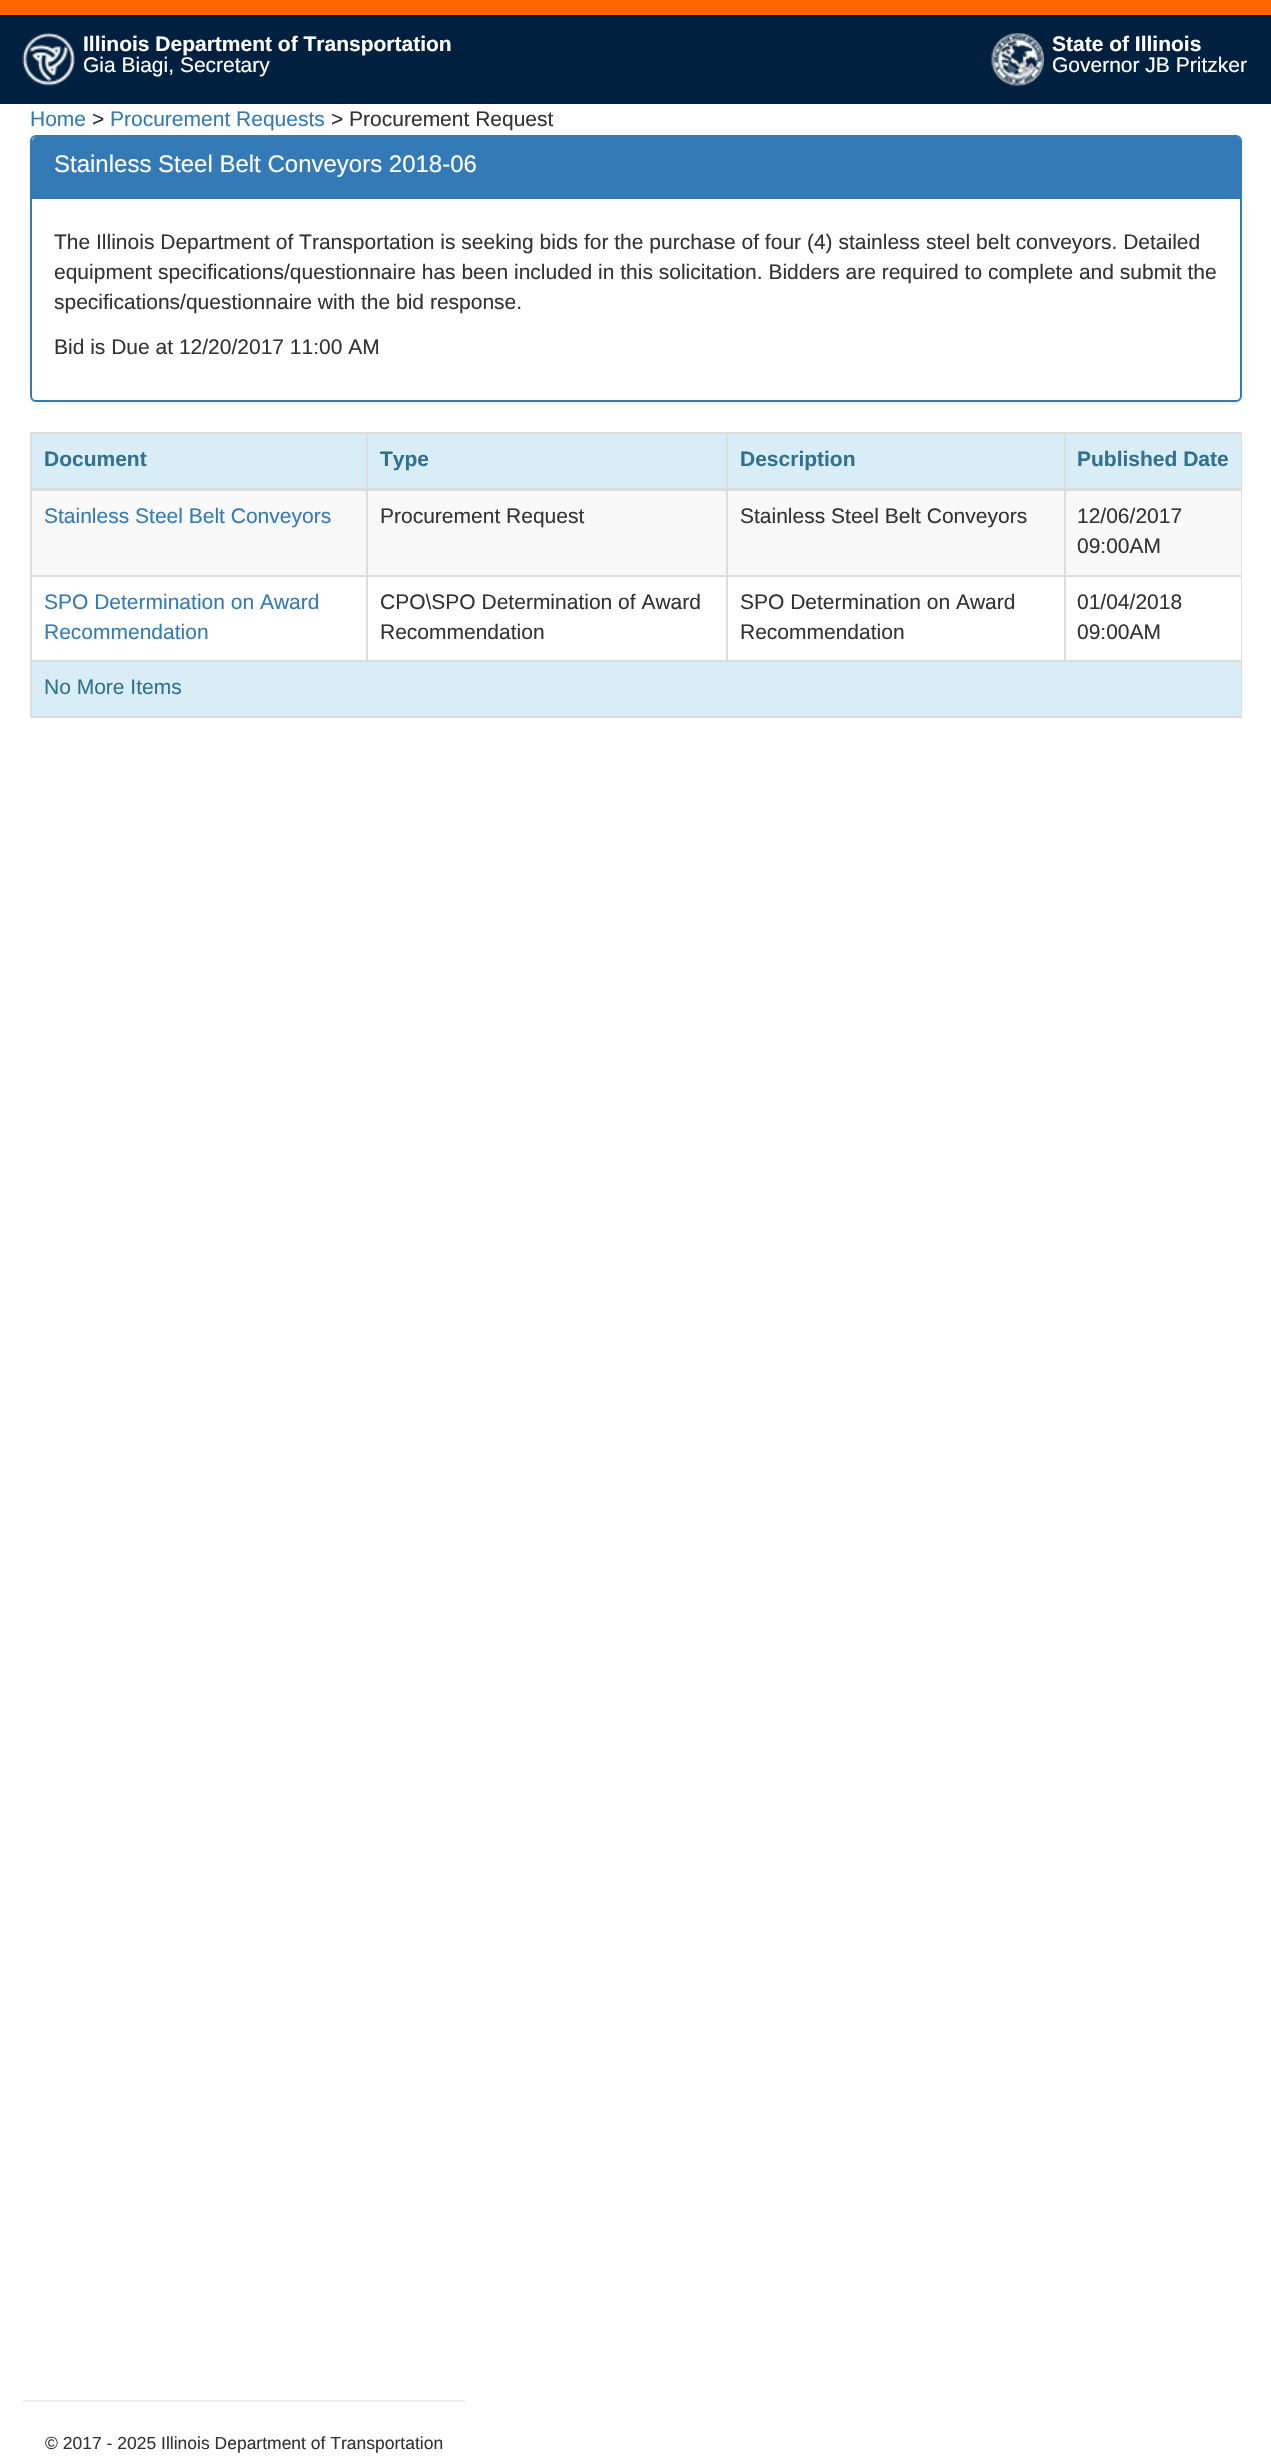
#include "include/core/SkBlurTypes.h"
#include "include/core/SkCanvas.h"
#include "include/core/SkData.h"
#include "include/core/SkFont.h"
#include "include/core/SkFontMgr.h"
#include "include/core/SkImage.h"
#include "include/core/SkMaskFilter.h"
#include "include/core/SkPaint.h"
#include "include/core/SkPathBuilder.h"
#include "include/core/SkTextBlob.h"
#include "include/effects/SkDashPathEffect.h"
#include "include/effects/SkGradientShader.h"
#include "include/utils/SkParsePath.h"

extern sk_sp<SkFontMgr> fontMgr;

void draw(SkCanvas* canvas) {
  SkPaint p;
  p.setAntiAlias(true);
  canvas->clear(SK_ColorWHITE);
  p.setColor(SkColorSetRGB(255, 102, 0));
  canvas->drawRect(SkRect::MakeLTRB(0, 0, 1271, 15), p);
  p.setColor(SkColorSetRGB(0, 32, 63));
  canvas->drawRect(SkRect::MakeLTRB(0, 15, 1271, 104), p);
  canvas->drawImageRect(SkImages::DeferredFromEncodedData(SkData::MakeFromFileName("images/1.png")), SkRect::MakeLTRB(22, 33, 75, 86), SkSamplingOptions());
  canvas->drawImageRect(SkImages::DeferredFromEncodedData(SkData::MakeFromFileName("images/2.png")), SkRect::MakeLTRB(991, 33, 1044, 86), SkSamplingOptions());
  p.setColor(SkColorSetARGB(13, 0, 0, 0));
  p.setMaskFilter(SkMaskFilter::MakeBlur(kNormal_SkBlurStyle, 1));
  canvas->drawRoundRect(SkRect::MakeLTRB(30, 137, 1242, 404), 6, 6, p);
  p.setMaskFilter(nullptr);
  p.setColor(SK_ColorWHITE);
  canvas->drawRoundRect(SkRect::MakeLTRB(31, 136, 1241, 401), 5, 5, p);
  p.setStyle(SkPaint::kStroke_Style);
  p.setStrokeWidth(2);
  p.setColor(SkColorSetRGB(51, 122, 183));
  canvas->drawRoundRect(SkRect::MakeLTRB(31, 136, 1241, 401), 5, 5, p);
  p.setStyle(SkPaint::kFill_Style);
  canvas->drawPath(SkPathBuilder().moveTo(37, 137).lineTo(1236, 137).cubicTo(1239, 137, 1241, 139, 1241, 142).lineTo(1241, 198).lineTo(32, 198).lineTo(32, 142).cubicTo(32, 139, 34, 137, 37, 137).close().detach(), p);
  canvas->drawRect(SkRect::MakeLTRB(32, 198, 1241, 199), p);
  p.setColor(SkColorSetRGB(221, 221, 221));
  canvas->drawRect(SkRect::MakeLTRB(30, 432, 1242, 434), p);
  canvas->drawRect(SkRect::MakeLTRB(1241, 432, 1242, 717), p);
  canvas->drawRect(SkRect::MakeLTRB(30, 716, 1242, 718), p);
  canvas->drawRect(SkRect::MakeLTRB(30, 432, 32, 717), p);
  p.setColor(SkColorSetRGB(217, 237, 247));
  canvas->drawRect(SkRect::MakeLTRB(32, 434, 1241, 488), p);
  p.setColor(SkColorSetRGB(249, 249, 249));
  canvas->drawRect(SkRect::MakeLTRB(32, 491, 1241, 575), p);
  p.setColor(SkColorSetRGB(221, 221, 221));
  canvas->drawRect(SkRect::MakeLTRB(1064, 575, 1242, 577), p);
  canvas->drawRect(SkRect::MakeLTRB(30, 660, 1242, 662), p);
  canvas->drawRect(SkRect::MakeLTRB(1064, 575, 1066, 662), p);
  canvas->drawRect(SkRect::MakeLTRB(726, 575, 1065, 577), p);
  canvas->drawRect(SkRect::MakeLTRB(726, 575, 728, 662), p);
  canvas->drawRect(SkRect::MakeLTRB(366, 575, 728, 577), p);
  canvas->drawRect(SkRect::MakeLTRB(366, 575, 368, 662), p);
  canvas->drawRect(SkRect::MakeLTRB(30, 575, 368, 577), p);
  canvas->drawRect(SkRect::MakeLTRB(366, 432, 368, 576), p);
  canvas->drawRect(SkRect::MakeLTRB(726, 432, 728, 576), p);
  canvas->drawRect(SkRect::MakeLTRB(1064, 432, 1066, 576), p);
  canvas->drawRect(SkRect::MakeLTRB(30, 488, 1242, 491), p);
  p.setColor(SkColorSetRGB(217, 237, 247));
  canvas->drawRect(SkRect::MakeLTRB(32, 662, 1241, 716), p);
  p.setColor(SkColorSetRGB(238, 238, 238));
  canvas->drawRect(SkRect::MakeLTRB(23, 2400, 465, 2402), p);
  SkFont font1(fontMgr->matchFamilyStyle("Liberation Sans", SkFontStyle::Bold()), 21);
  font1.setSubpixel(true);
  p.setColor(SK_ColorWHITE);
  canvas->drawString("Illinois Department of Transportation", 83, 51, font1, p);
  SkFont font2(fontMgr->matchFamilyStyle("Liberation Sans", SkFontStyle::Normal()), 21);
  font2.setSubpixel(true);
  canvas->drawString("Gia Biagi, Secretary", 83, 72, font2, p);
  canvas->drawString("State of Illinois", 1052, 51, font1, p);
  canvas->drawString("Governor JB Pritzker", 1052, 72, font2, p);
  p.setColor(SkColorSetRGB(51, 122, 183));
  canvas->drawString("Home", 30, 126, font2, p);
  p.setColor(SkColorSetRGB(51, 51, 51));
  canvas->drawString(">", 92, 126, font2, p);
  p.setColor(SkColorSetRGB(51, 122, 183));
  canvas->drawString("Procurement Requests", 110, 126, font2, p);
  p.setColor(SkColorSetRGB(51, 51, 51));
  canvas->drawString("> Procurement Request", 331, 126, font2, p);
  SkFont font3(fontMgr->matchFamilyStyle("Liberation Sans", SkFontStyle::Normal()), 24);
  font3.setSubpixel(true);
  p.setColor(SK_ColorWHITE);
  canvas->drawString("Stainless Steel Belt Conveyors 2018-06", 54, 172, font3, p);
  p.setColor(SkColorSetRGB(51, 51, 51));
  canvas->drawString("The Illinois Department of Transportation is seeking bids for the purchase of four (4) stainless steel belt conveyors. Detailed", 54, 249, font2, p);
  canvas->drawString("equipment specifications/questionnaire has been included in this solicitation. Bidders are required to complete and submit the", 54, 279, font2, p);
  canvas->drawString("specifications/questionnaire with the bid response.", 54, 309, font2, p);
  canvas->drawString("Bid is Due at 12/20/2017 11:00 AM", 54, 354, font2, p);
  p.setColor(SkColorSetRGB(49, 112, 143));
  canvas->drawString("Document", 44, 466, font1, p);
  canvas->drawString("Type", 380, 466, font1, p);
  canvas->drawString("Description", 740, 466, font1, p);
  canvas->drawString("Published Date", 1077, 466, font1, p);
  p.setColor(SkColorSetRGB(51, 122, 183));
  canvas->drawString("Stainless Steel Belt Conveyors", 44, 523, font2, p);
  p.setColor(SkColorSetRGB(51, 51, 51));
  canvas->drawString("Procurement Request", 380, 523, font2, p);
  canvas->drawString("Stainless Steel Belt Conveyors", 740, 523, font2, p);
  canvas->drawString("12/06/2017", 1077, 523, font2, p);
  canvas->drawString("09:00AM", 1077, 553, font2, p);
  p.setColor(SkColorSetRGB(51, 122, 183));
  canvas->drawString("SPO Determination on Award", 44, 609, font2, p);
  canvas->drawString("Recommendation", 44, 639, font2, p);
  p.setColor(SkColorSetRGB(51, 51, 51));
  canvas->drawString("CPO\\SPO Determination of Award", 380, 609, font2, p);
  canvas->drawString("Recommendation", 380, 639, font2, p);
  canvas->drawString("SPO Determination on Award", 740, 609, font2, p);
  canvas->drawString("Recommendation", 740, 639, font2, p);
  canvas->drawString("01/04/2018", 1077, 609, font2, p);
  canvas->drawString("09:00AM", 1077, 639, font2, p);
  p.setColor(SkColorSetRGB(49, 112, 143));
  canvas->drawString("No More Items", 44, 694, font2, p);
  SkFont font4(fontMgr->matchFamilyStyle("Liberation Sans", SkFontStyle::Normal()), 17.5f);
  font4.setSubpixel(true);
  p.setColor(SkColorSetRGB(51, 51, 51));
  canvas->drawString("© 2017 - 2025 Illinois Department of Transportation", 45, 2449, font4, p);
}
